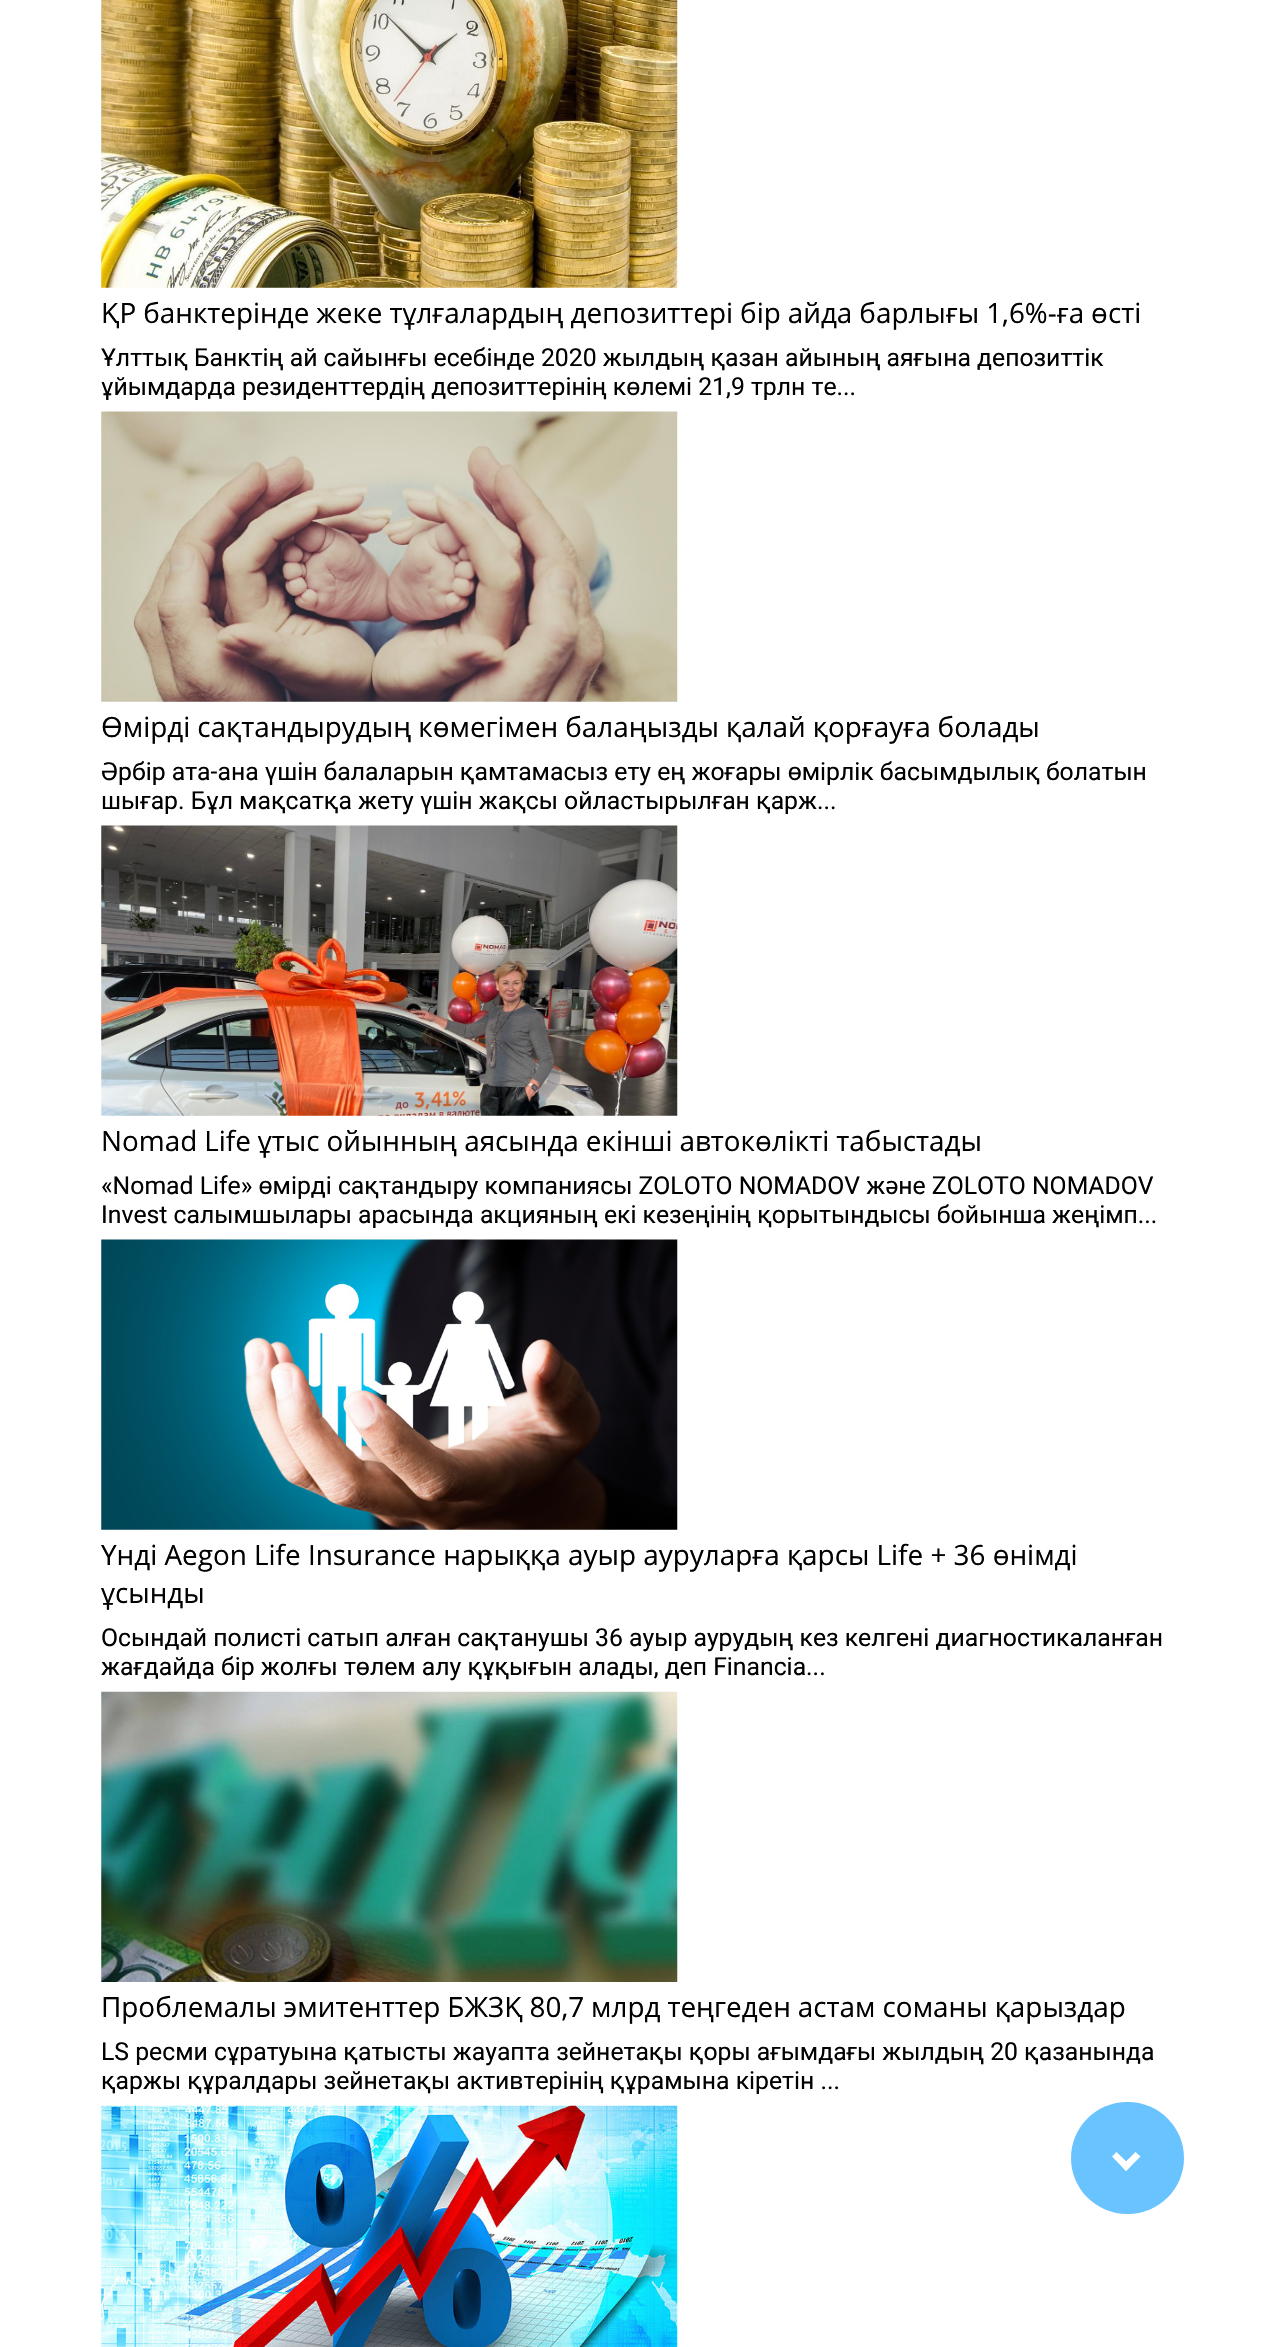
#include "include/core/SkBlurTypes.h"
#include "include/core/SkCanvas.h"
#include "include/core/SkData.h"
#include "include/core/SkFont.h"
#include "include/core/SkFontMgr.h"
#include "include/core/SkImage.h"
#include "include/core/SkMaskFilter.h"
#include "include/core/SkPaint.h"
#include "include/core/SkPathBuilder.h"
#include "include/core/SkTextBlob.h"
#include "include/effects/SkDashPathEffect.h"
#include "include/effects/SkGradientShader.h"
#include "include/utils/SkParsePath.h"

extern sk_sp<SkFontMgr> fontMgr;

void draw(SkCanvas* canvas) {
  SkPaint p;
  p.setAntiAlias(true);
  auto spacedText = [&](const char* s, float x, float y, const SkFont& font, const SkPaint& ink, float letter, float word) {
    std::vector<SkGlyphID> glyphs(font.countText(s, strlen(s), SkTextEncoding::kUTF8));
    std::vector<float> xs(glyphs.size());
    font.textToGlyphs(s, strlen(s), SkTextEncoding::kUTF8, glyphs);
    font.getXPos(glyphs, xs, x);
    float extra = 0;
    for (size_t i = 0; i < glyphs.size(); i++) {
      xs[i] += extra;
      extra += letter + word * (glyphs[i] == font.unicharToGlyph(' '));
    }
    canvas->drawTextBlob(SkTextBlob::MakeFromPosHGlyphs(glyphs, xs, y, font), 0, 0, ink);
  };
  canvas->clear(SK_ColorWHITE);
  canvas->drawImageRect(SkImages::DeferredFromEncodedData(SkData::MakeFromFileName("images/1.png")), SkRect::MakeLTRB(101, 0, 678, 288), SkSamplingOptions());
  canvas->drawImageRect(SkImages::DeferredFromEncodedData(SkData::MakeFromFileName("images/2.png")), SkRect::MakeLTRB(101, 411, 678, 702), SkSamplingOptions());
  canvas->drawImageRect(SkImages::DeferredFromEncodedData(SkData::MakeFromFileName("images/3.png")), SkRect::MakeLTRB(101, 825, 678, 1116), SkSamplingOptions());
  canvas->drawImageRect(SkImages::DeferredFromEncodedData(SkData::MakeFromFileName("images/4.png")), SkRect::MakeLTRB(101, 1239, 678, 1530), SkSamplingOptions());
  canvas->drawImageRect(SkImages::DeferredFromEncodedData(SkData::MakeFromFileName("images/5.png")), SkRect::MakeLTRB(101, 1691, 678, 1982), SkSamplingOptions());
  canvas->drawImageRect(SkImages::DeferredFromEncodedData(SkData::MakeFromFileName("images/6.png")), SkRect::MakeLTRB(101, 2105, 678, 2347), SkSamplingOptions());
  p.setColor(SkColorSetRGB(105, 195, 255));
  canvas->drawRoundRect(SkRect::MakeLTRB(1071, 2102, 1184, 2214), 56, 56, p);
  p.setColor(SK_ColorWHITE);
  canvas->drawPath(SkPathBuilder().moveTo(1135.5f, 2152).lineTo(1140.5f, 2156.5f).lineTo(1126, 2171).lineTo(1121.5f, 2166).close().detach(), p);
  canvas->drawPath(SkPathBuilder().moveTo(1116.5f, 2152).lineTo(1131, 2166).lineTo(1126, 2171).lineTo(1112, 2156.5f).close().detach(), p);
  SkFont font1(fontMgr->matchFamilyStyle("Open Sans", SkFontStyle::Normal()), 27.85f);
  font1.setSubpixel(true);
  p.setColor(SK_ColorBLACK);
  spacedText("ҚР банктерінде жеке тұлғалардың депозиттері бір айда барлығы 1,6%-ға өсті", 101, 323, font1, p, 0, -0.25f);
  SkFont font2(fontMgr->matchFamilyStyle("Roboto", SkFontStyle::Normal()), 24.75f);
  font2.setSubpixel(true);
  canvas->drawString("Ұлттық Банктің ай сайынғы есебінде 2020 жылдың қазан айының аяғына депозиттік", 101, 366, font2, p);
  canvas->drawString("ұйымдарда резиденттердің депозиттерінің көлемі 21,9 трлн те...", 101, 395, font2, p);
  spacedText("Өмірді сақтандырудың көмегімен балаңызды қалай қорғауға болады", 101, 737, font1, p, 0, -0.25f);
  canvas->drawString("Әрбір ата-ана үшін балаларын қамтамасыз ету ең жоғары өмірлік басымдылық болатын", 101, 780, font2, p);
  canvas->drawString("шығар. Бұл мақсатқа жету үшін жақсы ойластырылған қарж...", 101, 809, font2, p);
  spacedText("Nomad Life ұтыс ойынның аясында екінші автокөлікті табыстады", 101, 1151, font1, p, 0, -0.25f);
  canvas->drawString("«Nomad Life» өмірді сақтандыру компаниясы ZOLOTO NOMADOV және ZOLOTO NOMADOV", 101, 1194, font2, p);
  canvas->drawString("Invest салымшылары арасында акцияның екі кезеңінің қорытындысы бойынша жеңімп...", 101, 1223, font2, p);
  canvas->drawString("Үнді Aegon Life Insurance нарыққа ауыр ауруларға қарсы Life + 36 өнімді", 101, 1565, font1, p);
  canvas->drawString("ұсынды", 101, 1603, font1, p);
  canvas->drawString("Осындай полисті сатып алған сақтанушы 36 ауыр аурудың кез келгені диагностикаланған", 101, 1646, font2, p);
  canvas->drawString("жағдайда бір жолғы төлем алу құқығын алады, деп Financia...", 101, 1675, font2, p);
  spacedText("Проблемалы эмитенттер БЖЗҚ 80,7 млрд теңгеден астам соманы қарыздар", 101, 2017, font1, p, 0, -0.25f);
  canvas->drawString("LS ресми сұратуына қатысты жауапта зейнетақы қоры ағымдағы жылдың 20 қазанында", 101, 2060, font2, p);
  canvas->drawString("қаржы құралдары зейнетақы активтерінің құрамына кіретін ...", 101, 2089, font2, p);
}
